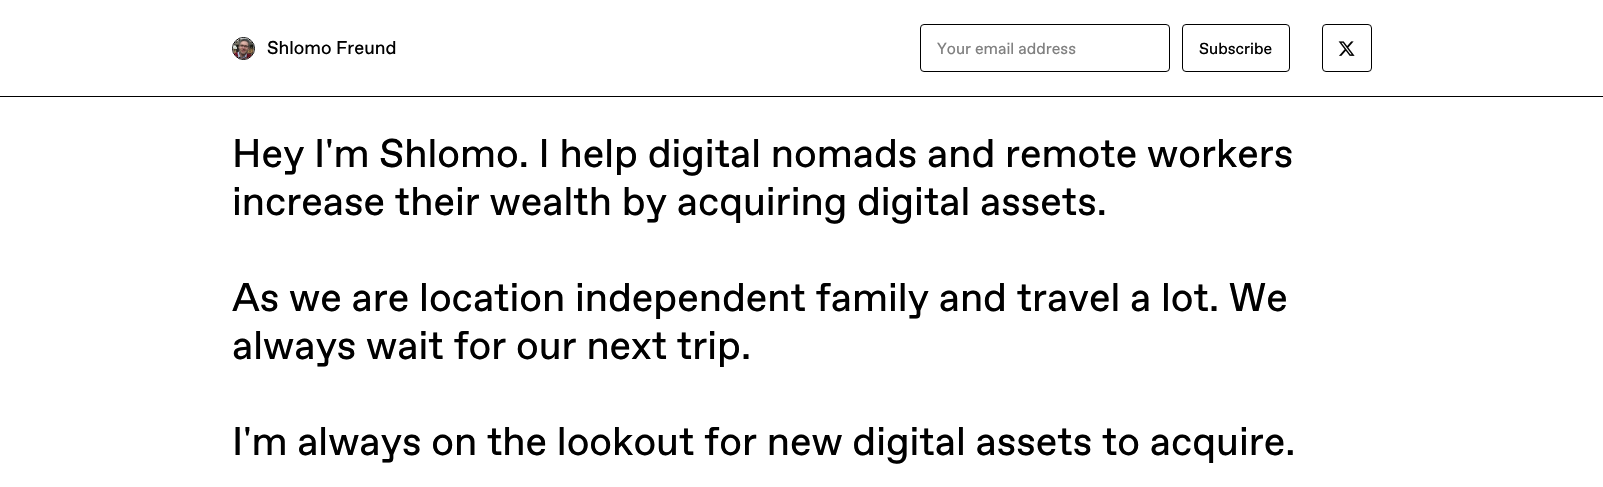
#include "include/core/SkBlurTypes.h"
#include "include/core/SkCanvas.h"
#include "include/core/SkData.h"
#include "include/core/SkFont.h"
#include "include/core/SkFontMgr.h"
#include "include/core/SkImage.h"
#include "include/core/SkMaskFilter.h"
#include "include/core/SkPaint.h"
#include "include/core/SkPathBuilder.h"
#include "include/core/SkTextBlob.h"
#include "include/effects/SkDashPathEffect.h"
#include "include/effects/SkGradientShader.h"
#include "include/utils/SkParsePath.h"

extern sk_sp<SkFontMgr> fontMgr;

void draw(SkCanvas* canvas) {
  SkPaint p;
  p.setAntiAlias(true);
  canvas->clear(SK_ColorWHITE);
  p.setColor(SK_ColorBLACK);
  canvas->drawRect(SkRect::MakeLTRB(0, 96, 1603, 97), p);
  p.setStyle(SkPaint::kStroke_Style);
  p.setStrokeWidth(1);
  canvas->drawCircle(243.5f, 48.5f, 11, p);
  canvas->drawImageRect(SkImages::DeferredFromEncodedData(SkData::MakeFromFileName("images/1.png")), SkRect::MakeLTRB(233, 38, 254, 59), SkSamplingOptions());
  canvas->drawRoundRect(SkRect::MakeLTRB(920.5f, 24.5f, 1169.5f, 71.5f), 3.5f, 3.5f, p);
  canvas->drawRoundRect(SkRect::MakeLTRB(1182.5f, 24.5f, 1289.5f, 71.5f), 3.5f, 3.5f, p);
  canvas->drawRoundRect(SkRect::MakeLTRB(1322.5f, 24.5f, 1371.5f, 71.5f), 3.5f, 3.5f, p);
  canvas->drawImageRect(SkImages::DeferredFromEncodedData(SkData::MakeFromFileName("images/2.png")), SkRect::MakeLTRB(1338, 41, 1355, 56), SkSamplingOptions());
  SkFont font1(fontMgr->matchFamilyStyle("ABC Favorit", SkFontStyle::Normal()), 18.5f);
  font1.setSubpixel(true);
  p.setStyle(SkPaint::kFill_Style);
  canvas->drawString("Shlomo Freund", 267, 54, font1, p);
  SkFont font2(fontMgr->matchFamilyStyle("ABC Favorit", SkFontStyle::Normal()), 16);
  font2.setSubpixel(true);
  p.setColor(SkColorSetRGB(128, 128, 128));
  canvas->drawString("Your email address", 937, 54, font2, p);
  p.setColor(SK_ColorBLACK);
  canvas->drawString("Subscribe", 1199, 54, font2, p);
  SkFont font3(fontMgr->matchFamilyStyle("ABC Favorit", SkFontStyle::Normal()), 40);
  font3.setSubpixel(true);
  canvas->drawString("Hey I'm Shlomo. I help digital nomads and remote workers", 232, 167, font3, p);
  canvas->drawString("increase their wealth by acquiring digital assets.", 232, 215, font3, p);
  canvas->drawString("As we are location independent family and travel a lot. We", 232, 311, font3, p);
  canvas->drawString("always wait for our next trip.", 232, 359, font3, p);
  canvas->drawString("I'm always on the lookout for new digital assets to acquire.", 232, 455, font3, p);
}
